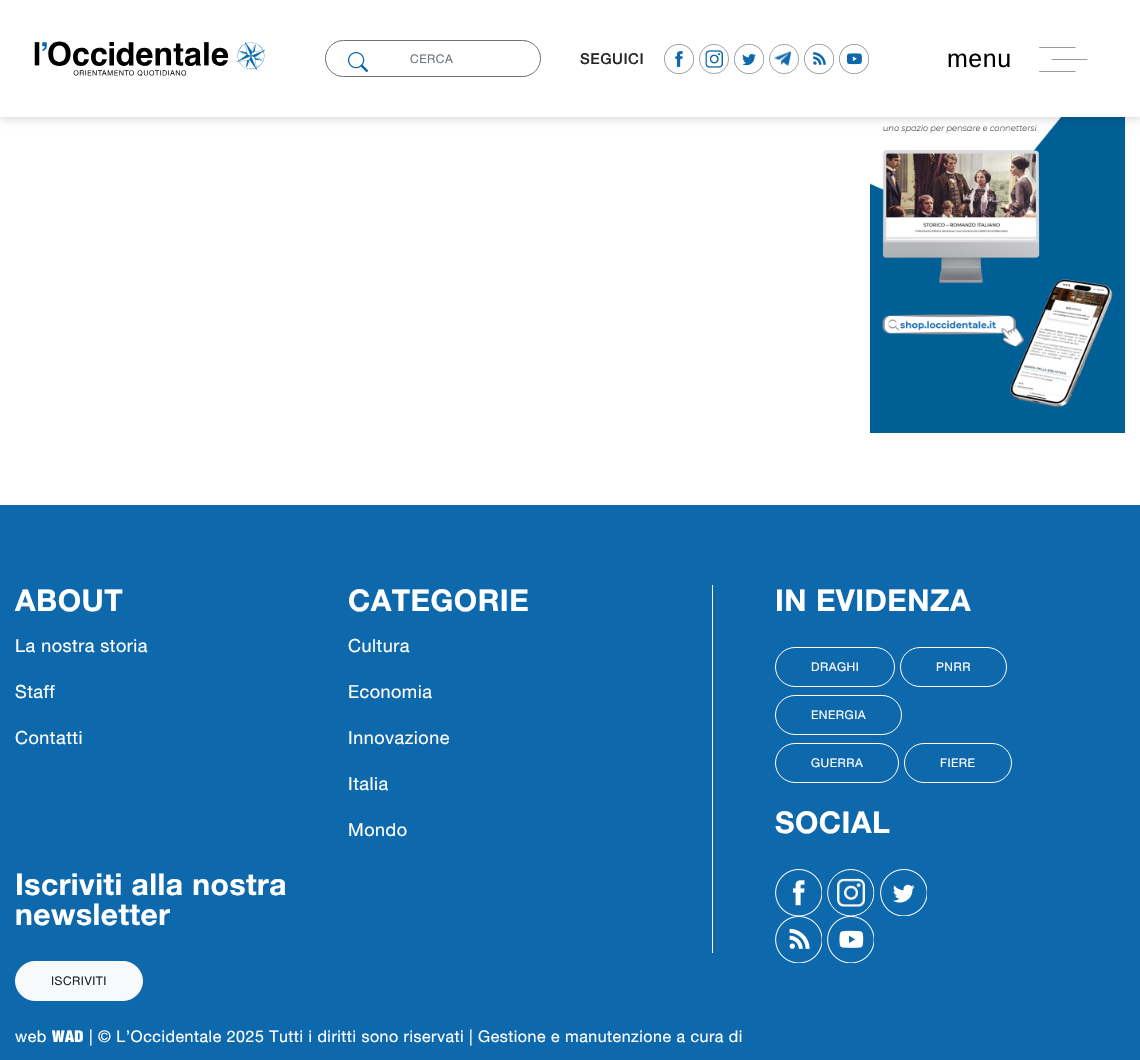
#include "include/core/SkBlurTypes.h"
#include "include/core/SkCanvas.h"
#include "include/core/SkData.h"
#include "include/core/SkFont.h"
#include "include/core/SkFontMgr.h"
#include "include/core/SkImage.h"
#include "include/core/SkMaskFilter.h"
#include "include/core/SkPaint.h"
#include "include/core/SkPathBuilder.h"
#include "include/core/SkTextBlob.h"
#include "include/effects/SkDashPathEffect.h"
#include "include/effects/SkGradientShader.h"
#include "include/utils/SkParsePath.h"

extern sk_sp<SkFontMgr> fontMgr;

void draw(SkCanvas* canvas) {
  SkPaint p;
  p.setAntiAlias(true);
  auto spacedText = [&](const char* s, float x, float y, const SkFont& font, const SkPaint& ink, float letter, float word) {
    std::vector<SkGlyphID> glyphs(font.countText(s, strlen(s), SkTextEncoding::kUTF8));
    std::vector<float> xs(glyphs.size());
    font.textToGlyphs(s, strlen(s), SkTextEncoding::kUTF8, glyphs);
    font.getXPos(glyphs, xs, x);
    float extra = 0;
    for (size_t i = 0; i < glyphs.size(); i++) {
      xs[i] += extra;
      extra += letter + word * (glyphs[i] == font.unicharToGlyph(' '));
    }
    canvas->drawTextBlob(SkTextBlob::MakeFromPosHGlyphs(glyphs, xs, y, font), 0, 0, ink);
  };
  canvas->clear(SK_ColorWHITE);
  canvas->drawImageRect(SkImages::DeferredFromEncodedData(SkData::MakeFromFileName("images/9.png")), SkRect::MakeLTRB(870, 117, 1125, 433), SkSamplingOptions());
  p.setColor(SkColorSetARGB(56, 0, 0, 0));
  p.setMaskFilter(SkMaskFilter::MakeBlur(kNormal_SkBlurStyle, 5));
  canvas->drawRect(SkRect::MakeLTRB(0, 0, 1140, 117), p);
  p.setMaskFilter(nullptr);
  p.setColor(SK_ColorWHITE);
  canvas->drawRect(SkRect::MakeLTRB(0, 0, 1140, 117), p);
  canvas->drawImageRect(SkImages::DeferredFromEncodedData(SkData::MakeFromFileName("images/1.png")), SkRect::MakeLTRB(34, 41, 265, 76), SkSamplingOptions());
  p.setStyle(SkPaint::kStroke_Style);
  p.setStrokeWidth(1);
  p.setColor(SkColorSetRGB(112, 112, 112));
  canvas->drawRoundRect(SkRect::MakeLTRB(325.5f, 40.5f, 540.5f, 76.5f), 18, 18, p);
  canvas->drawImageRect(SkImages::DeferredFromEncodedData(SkData::MakeFromFileName("images/2.png")), SkRect::MakeLTRB(348, 52, 368, 72), SkSamplingOptions());
  canvas->drawImageRect(SkImages::DeferredFromEncodedData(SkData::MakeFromFileName("images/3.png")), SkRect::MakeLTRB(664, 44, 694, 74), SkSamplingOptions());
  canvas->drawImageRect(SkImages::DeferredFromEncodedData(SkData::MakeFromFileName("images/4.png")), SkRect::MakeLTRB(699, 44, 729, 74), SkSamplingOptions());
  canvas->drawImageRect(SkImages::DeferredFromEncodedData(SkData::MakeFromFileName("images/5.png")), SkRect::MakeLTRB(734, 44, 764, 74), SkSamplingOptions());
  canvas->drawImageRect(SkImages::DeferredFromEncodedData(SkData::MakeFromFileName("images/6.png")), SkRect::MakeLTRB(769, 44, 799, 74), SkSamplingOptions());
  canvas->drawImageRect(SkImages::DeferredFromEncodedData(SkData::MakeFromFileName("images/7.png")), SkRect::MakeLTRB(804, 44, 834, 74), SkSamplingOptions());
  canvas->drawImageRect(SkImages::DeferredFromEncodedData(SkData::MakeFromFileName("images/8.png")), SkRect::MakeLTRB(839, 44, 869, 74), SkSamplingOptions());
  p.setStrokeWidth(0.7f);
  p.setStrokeCap(SkPaint::kRound_Cap);
  canvas->drawPath(SkPathBuilder().moveTo(1039.5f, 47.5f).lineTo(1075, 47.5f).moveTo(1052, 59.5f).lineTo(1087, 59.5f).moveTo(1039.5f, 71.5f).lineTo(1075, 71.5f).detach(), p);
  p.setStyle(SkPaint::kFill_Style);
  p.setColor(SkColorSetRGB(14, 104, 172));
  canvas->drawRect(SkRect::MakeLTRB(0, 505, 1140, 1060), p);
  p.setColor(SkColorSetRGB(248, 249, 250));
  canvas->drawRoundRect(SkRect::MakeLTRB(15.5f, 961.5f, 142.5f, 1000.5f), 19.5f, 19.5f, p);
  p.setStyle(SkPaint::kStroke_Style);
  p.setStrokeWidth(1);
  p.setStrokeCap(SkPaint::kButt_Cap);
  canvas->drawRoundRect(SkRect::MakeLTRB(15.5f, 961.5f, 142.5f, 1000.5f), 19.5f, 19.5f, p);
  p.setStyle(SkPaint::kFill_Style);
  p.setColor(SK_ColorWHITE);
  canvas->drawRect(SkRect::MakeLTRB(712, 585, 713, 953), p);
  p.setStyle(SkPaint::kStroke_Style);
  canvas->drawRoundRect(SkRect::MakeLTRB(775.5f, 647.5f, 894.5f, 686.5f), 19.5f, 19.5f, p);
  canvas->drawRoundRect(SkRect::MakeLTRB(900.5f, 647.5f, 1006.5f, 686.5f), 19.5f, 19.5f, p);
  canvas->drawRoundRect(SkRect::MakeLTRB(775.5f, 695.5f, 901.5f, 734.5f), 19.5f, 19.5f, p);
  canvas->drawRoundRect(SkRect::MakeLTRB(775.5f, 743.5f, 898.5f, 782.5f), 19.5f, 19.5f, p);
  canvas->drawRoundRect(SkRect::MakeLTRB(904.5f, 743.5f, 1011.5f, 782.5f), 19.5f, 19.5f, p);
  canvas->drawImageRect(SkImages::DeferredFromEncodedData(SkData::MakeFromFileName("images/10.png")), SkRect::MakeLTRB(775, 869, 822, 916), SkSamplingOptions());
  canvas->drawImageRect(SkImages::DeferredFromEncodedData(SkData::MakeFromFileName("images/11.png")), SkRect::MakeLTRB(827, 869, 875, 916), SkSamplingOptions());
  canvas->drawImageRect(SkImages::DeferredFromEncodedData(SkData::MakeFromFileName("images/12.png")), SkRect::MakeLTRB(880, 869, 927, 916), SkSamplingOptions());
  canvas->drawImageRect(SkImages::DeferredFromEncodedData(SkData::MakeFromFileName("images/13.png")), SkRect::MakeLTRB(775, 916, 822, 963), SkSamplingOptions());
  canvas->drawImageRect(SkImages::DeferredFromEncodedData(SkData::MakeFromFileName("images/14.png")), SkRect::MakeLTRB(827, 916, 874, 963), SkSamplingOptions());
  SkFont font1(fontMgr->matchFamilyStyle("Helvetica Neue", SkFontStyle::Normal()), 12);
  font1.setSubpixel(true);
  p.setStyle(SkPaint::kFill_Style);
  p.setColor(SkColorSetRGB(108, 117, 125));
  spacedText("CERCA", 410, 63, font1, p, 0.5f, 0);
  SkFont font2(fontMgr->matchFamilyStyle("Helvetica Neue", SkFontStyle(500, SkFontStyle::kNormal_Width, SkFontStyle::kUpright_Slant)), 15);
  font2.setSubpixel(true);
  p.setColor(SkColorSetRGB(39, 39, 39));
  spacedText("SEGUICI", 580, 64, font2, p, 0.5f, 0);
  SkFont font3(fontMgr->matchFamilyStyle("Liberation Sans", SkFontStyle::Normal()), 25);
  font3.setSubpixel(true);
  p.setColor(SK_ColorBLACK);
  spacedText("menu", 947, 67, font3, p, 0.5f, 0);
  SkFont font4(fontMgr->matchFamilyStyle("Helvetica Neue", SkFontStyle::Bold()), 30);
  font4.setSubpixel(true);
  p.setColor(SK_ColorWHITE);
  spacedText("ABOUT", 15, 611, font4, p, 0.5f, 0);
  SkFont font5(fontMgr->matchFamilyStyle("Helvetica Neue", SkFontStyle::Normal()), 18);
  font5.setSubpixel(true);
  spacedText("La nostra storia", 15, 652, font5, p, 0.5f, 0);
  spacedText("Staff", 15, 698, font5, p, 0.5f, 0);
  spacedText("Contatti", 15, 744, font5, p, 0.5f, 0);
  spacedText("CATEGORIE", 348, 611, font4, p, 0.5f, 0);
  spacedText("Cultura", 348, 652, font5, p, 0.5f, 0);
  spacedText("Economia", 348, 698, font5, p, 0.5f, 0);
  spacedText("Innovazione", 348, 744, font5, p, 0.5f, 0);
  spacedText("Italia", 348, 790, font5, p, 0.5f, 0);
  spacedText("Mondo", 348, 836, font5, p, 0.5f, 0);
  spacedText("Iscriviti alla nostra", 15, 895, font4, p, 0.5f, 0);
  spacedText("newsletter", 15, 925, font4, p, 0.5f, 0);
  p.setColor(SkColorSetRGB(33, 37, 41));
  spacedText("ISCRIVITI", 51, 985, font1, p, 0.5f, 0);
  p.setColor(SK_ColorWHITE);
  spacedText("IN EVIDENZA", 775, 611, font4, p, 0.5f, 0);
  spacedText("DRAGHI", 811, 671, font1, p, 0.5f, 0);
  spacedText("PNRR", 936, 671, font1, p, 0.5f, 0);
  spacedText("ENERGIA", 811, 719, font1, p, 0.5f, 0);
  spacedText("GUERRA", 811, 767, font1, p, 0.5f, 0);
  spacedText("FIERE", 940, 767, font1, p, 0.5f, 0);
  spacedText("SOCIAL", 775, 833, font4, p, 0.5f, 0);
  SkFont font6(fontMgr->matchFamilyStyle("Helvetica Neue", SkFontStyle::Normal()), 16);
  font6.setSubpixel(true);
  spacedText("web", 15, 1042, font6, p, 0.5f, 0);
  SkFont font7(fontMgr->matchFamilyStyle("Helvetica Neue", SkFontStyle(900, SkFontStyle::kNormal_Width, SkFontStyle::kUpright_Slant)), 16);
  font7.setSubpixel(true);
  spacedText("WAD", 52, 1042, font7, p, 0.5f, 0);
  spacedText("| © L’Occidentale 2025 Tutti i diritti sono riservati | Gestione e manutenzione a cura di", 89, 1042, font6, p, 0.5f, 0);
}
